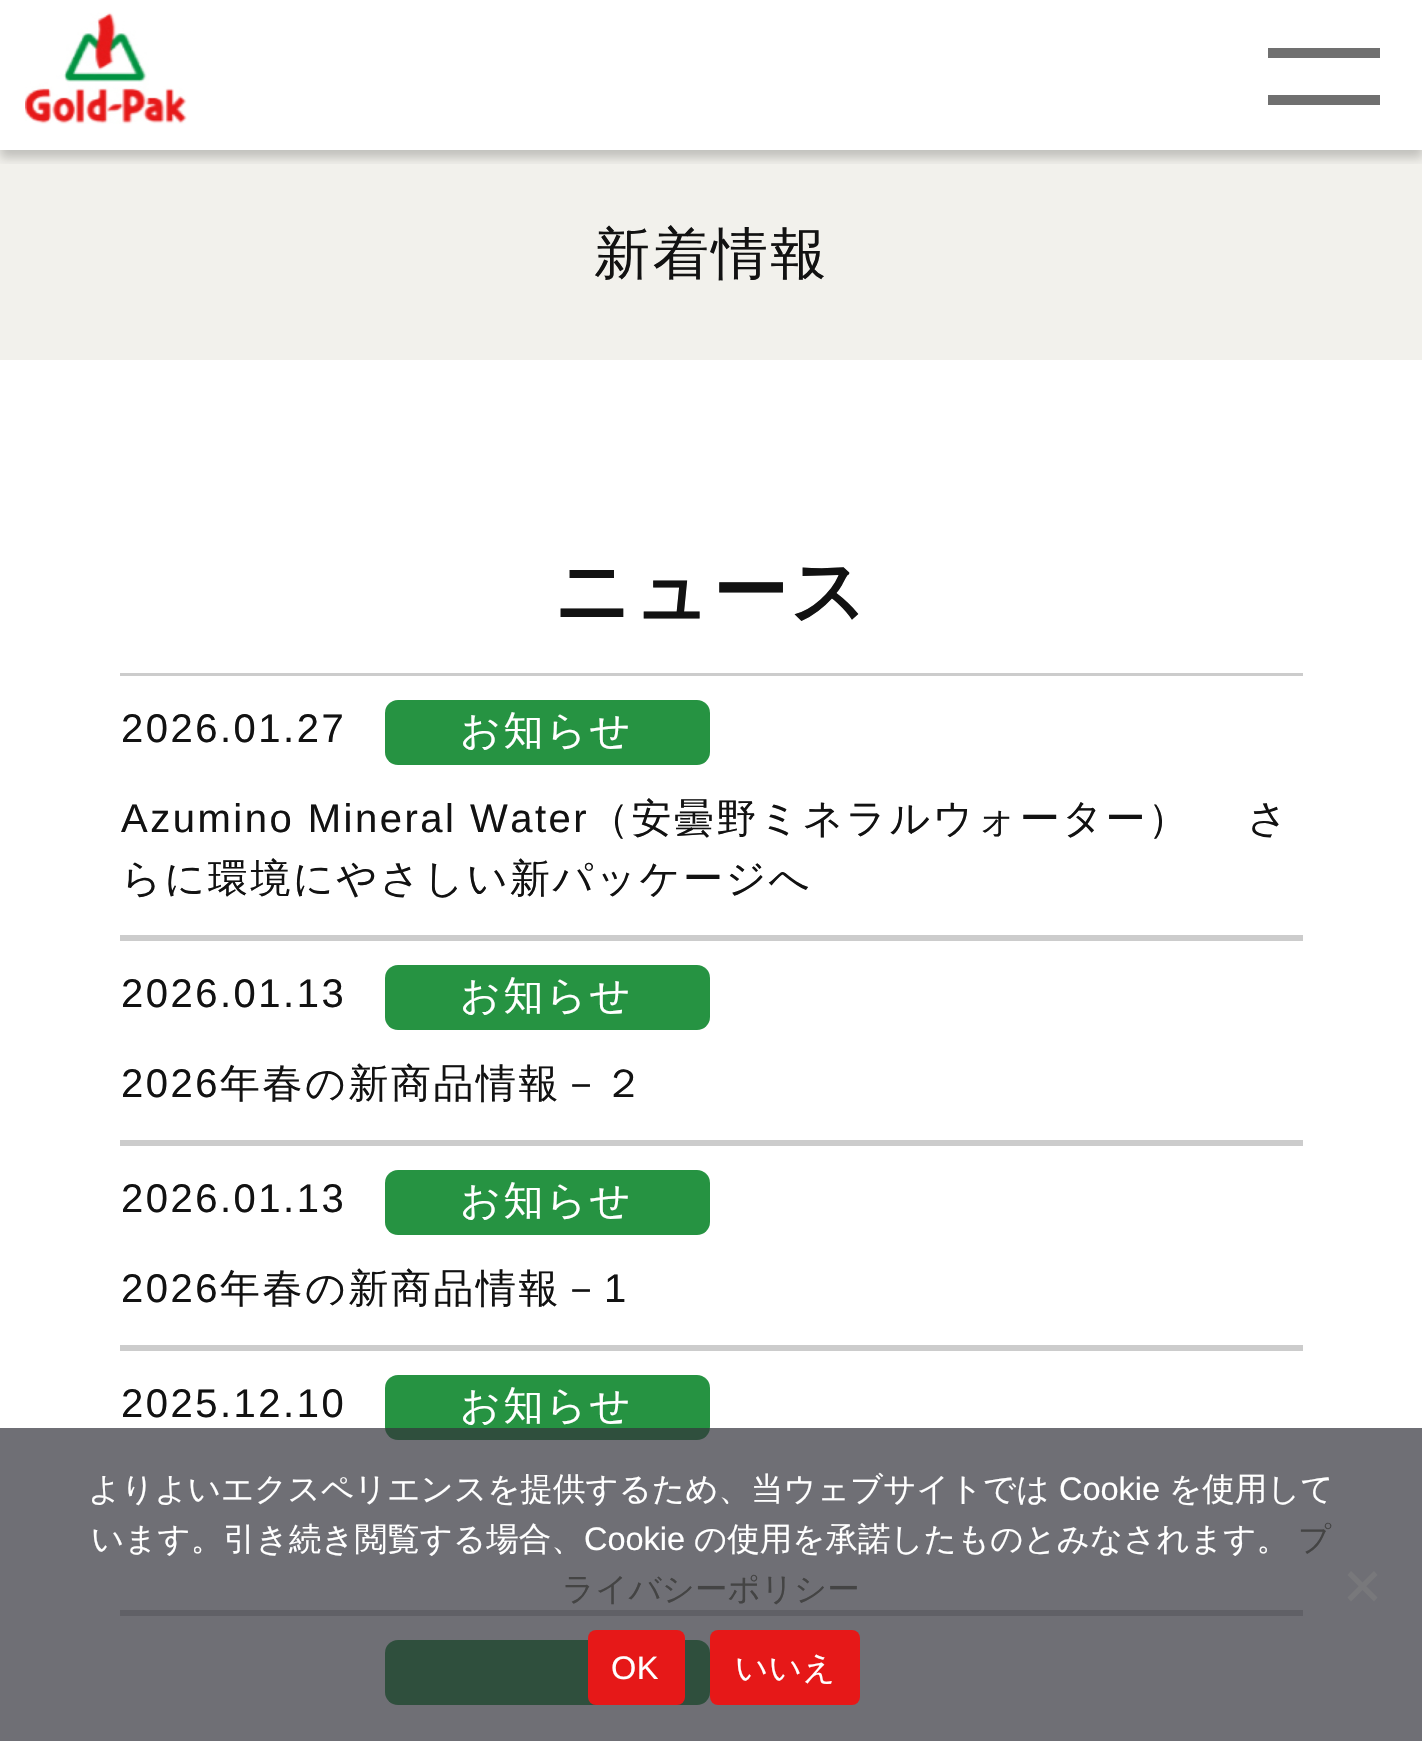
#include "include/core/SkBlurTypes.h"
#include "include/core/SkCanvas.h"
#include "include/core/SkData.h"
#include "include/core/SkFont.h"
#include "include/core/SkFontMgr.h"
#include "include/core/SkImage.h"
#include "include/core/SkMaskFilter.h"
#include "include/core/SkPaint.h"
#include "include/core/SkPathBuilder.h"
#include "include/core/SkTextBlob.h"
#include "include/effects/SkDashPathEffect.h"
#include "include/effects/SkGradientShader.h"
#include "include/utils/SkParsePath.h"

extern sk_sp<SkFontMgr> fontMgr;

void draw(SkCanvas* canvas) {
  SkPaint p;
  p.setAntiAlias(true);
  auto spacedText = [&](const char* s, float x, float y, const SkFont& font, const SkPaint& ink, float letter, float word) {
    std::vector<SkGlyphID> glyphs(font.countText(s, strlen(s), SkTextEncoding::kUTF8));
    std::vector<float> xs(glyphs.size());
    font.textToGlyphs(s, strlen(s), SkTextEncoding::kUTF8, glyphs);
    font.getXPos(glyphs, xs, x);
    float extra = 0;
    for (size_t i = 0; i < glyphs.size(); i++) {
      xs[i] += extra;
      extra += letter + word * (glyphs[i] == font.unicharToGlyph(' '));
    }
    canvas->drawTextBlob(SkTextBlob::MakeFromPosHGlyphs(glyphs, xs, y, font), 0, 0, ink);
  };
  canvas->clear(SK_ColorWHITE);
  p.setColor(SkColorSetRGB(242, 241, 236));
  canvas->drawRect(SkRect::MakeLTRB(0, 150, 1422, 360), p);
  canvas->save();
  canvas->clipRect(SkRect::MakeLTRB(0, 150, 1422, 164));
  p.setColor(SkColorSetARGB(51, 0, 0, 0));
  p.setMaskFilter(SkMaskFilter::MakeBlur(kNormal_SkBlurStyle, 5));
  canvas->drawRect(SkRect::MakeLTRB(0, 8, 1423, 158), p);
  p.setMaskFilter(nullptr);
  canvas->restore();
  canvas->drawImageRect(SkImages::DeferredFromEncodedData(SkData::MakeFromFileName("images/1.png")), SkRect::MakeLTRB(25, 12, 187, 124), SkSamplingOptions());
  p.setColor(SkColorSetRGB(112, 112, 112));
  canvas->drawRect(SkRect::MakeLTRB(1268, 48, 1380, 58), p);
  canvas->drawRect(SkRect::MakeLTRB(1268, 95, 1380, 105), p);
  p.setColor(SkColorSetRGB(204, 204, 204));
  canvas->drawRect(SkRect::MakeLTRB(120, 673, 1303, 676), p);
  canvas->drawRect(SkRect::MakeLTRB(120, 935, 1303, 941), p);
  p.setColor(SkColorSetRGB(38, 147, 66));
  canvas->drawRoundRect(SkRect::MakeLTRB(385, 700, 710, 765), 13, 13, p);
  p.setColor(SkColorSetRGB(204, 204, 204));
  canvas->drawRect(SkRect::MakeLTRB(120, 1140, 1303, 1146), p);
  p.setColor(SkColorSetRGB(38, 147, 66));
  canvas->drawRoundRect(SkRect::MakeLTRB(385, 965, 710, 1030), 13, 13, p);
  p.setColor(SkColorSetRGB(204, 204, 204));
  canvas->drawRect(SkRect::MakeLTRB(120, 1345, 1303, 1351), p);
  p.setColor(SkColorSetRGB(38, 147, 66));
  canvas->drawRoundRect(SkRect::MakeLTRB(385, 1170, 710, 1235), 13, 13, p);
  p.setColor(SkColorSetRGB(204, 204, 204));
  canvas->drawRect(SkRect::MakeLTRB(120, 1610, 1303, 1616), p);
  p.setColor(SkColorSetRGB(38, 147, 66));
  canvas->drawRoundRect(SkRect::MakeLTRB(385, 1375, 710, 1440), 13, 13, p);
  canvas->drawRoundRect(SkRect::MakeLTRB(385, 1640, 710, 1705), 13, 13, p);
  p.setColor(SkColorSetARGB(179, 50, 50, 58));
  canvas->drawRect(SkRect::MakeLTRB(0, 1428, 1422, 1741), p);
  p.setColor(SkColorSetRGB(120, 120, 123));
  canvas->drawPath(SkPathBuilder().moveTo(1374, 1571).lineTo(1377.5f, 1575).lineTo(1351, 1601.5f).lineTo(1347.5f, 1597.5f).close().detach(), p);
  canvas->drawPath(SkPathBuilder().moveTo(1347.5f, 1575).lineTo(1351, 1571).lineTo(1377.5f, 1597.5f).lineTo(1374, 1601.5f).close().detach(), p);
  p.setColor(SkColorSetRGB(230, 24, 24));
  canvas->drawRoundRect(SkRect::MakeLTRB(588, 1630, 685, 1705), 8, 8, p);
  canvas->drawRoundRect(SkRect::MakeLTRB(710, 1630, 860, 1705), 8, 8, p);
  SkFont font1(fontMgr->matchFamilyStyle("WenQuanYi Zen Hei", SkFontStyle(500, SkFontStyle::kNormal_Width, SkFontStyle::kUpright_Slant)), 56.25f);
  font1.setSubpixel(true);
  p.setColor(SkColorSetRGB(18, 18, 18));
  spacedText("新着情報", 594, 273, font1, p, 2.5f, 0);
  SkFont font2(fontMgr->matchFamilyStyle("WenQuanYi Zen Hei", SkFontStyle::Bold()), 75);
  font2.setSubpixel(true);
  spacedText("ニュース", 554, 617, font2, p, 2.5f, 0);
  SkFont font3(fontMgr->matchFamilyStyle("Liberation Sans", SkFontStyle::Normal()), 40);
  font3.setSubpixel(true);
  spacedText("2026.01.27", 121, 742, font3, p, 2.5f, 0);
  SkFont font4(fontMgr->matchFamilyStyle("WenQuanYi Zen Hei", SkFontStyle(500, SkFontStyle::kNormal_Width, SkFontStyle::kUpright_Slant)), 40);
  font4.setSubpixel(true);
  p.setColor(SK_ColorWHITE);
  spacedText("お知らせ", 460, 744, font4, p, 2.5f, 0);
  p.setColor(SkColorSetRGB(18, 18, 18));
  spacedText("Azumino Mineral Water", 121, 832, font3, p, 2.5f, 0);
  spacedText("（安曇野ミネラルウォーター）", 589, 832, font4, p, 2.5f, 0);
  spacedText("さ", 1247, 832, font4, p, 2.5f, 0);
  spacedText("らに環境にやさしい新パッケージへ", 121, 892, font4, p, 2.5f, 0);
  spacedText("2026.01.13", 121, 1007, font3, p, 2.5f, 0);
  p.setColor(SK_ColorWHITE);
  spacedText("お知らせ", 460, 1009, font4, p, 2.5f, 0);
  p.setColor(SkColorSetRGB(18, 18, 18));
  spacedText("2026", 121, 1097, font3, p, 2.5f, 0);
  spacedText("年春の新商品情報－２", 220, 1097, font4, p, 2.5f, 0);
  spacedText("2026.01.13", 121, 1212, font3, p, 2.5f, 0);
  p.setColor(SK_ColorWHITE);
  spacedText("お知らせ", 460, 1214, font4, p, 2.5f, 0);
  p.setColor(SkColorSetRGB(18, 18, 18));
  spacedText("2026", 121, 1302, font3, p, 2.5f, 0);
  spacedText("年春の新商品情報－", 220, 1302, font4, p, 2.5f, 0);
  spacedText("1", 604, 1302, font3, p, 2.5f, 0);
  spacedText("2025.12.10", 121, 1417, font3, p, 2.5f, 0);
  p.setColor(SK_ColorWHITE);
  spacedText("お知らせ", 460, 1419, font4, p, 2.5f, 0);
  SkFont font5(fontMgr->matchFamilyStyle("WenQuanYi Zen Hei", SkFontStyle(500, SkFontStyle::kNormal_Width, SkFontStyle::kUpright_Slant)), 32.5f);
  font5.setSubpixel(true);
  canvas->drawString("よりよいエクスペリエンスを提供するため、当ウェブサイトでは", 88, 1500, font5, p);
  SkFont font6(fontMgr->matchFamilyStyle("Liberation Sans", SkFontStyle::Normal()), 32.5f);
  font6.setSubpixel(true);
  canvas->drawString("Cookie", 1059, 1500, font6, p);
  canvas->drawString("を使用して", 1169, 1500, font5, p);
  canvas->drawString("います。引き続き閲覧する場合、", 91, 1550, font5, p);
  canvas->drawString("Cookie", 584, 1550, font6, p);
  canvas->drawString("の使用を承諾したものとみなされます。", 694, 1550, font5, p);
  p.setColor(SkColorSetRGB(68, 68, 68));
  canvas->drawString("プ", 1298, 1550, font5, p);
  canvas->drawString("ライバシーポリシー", 562, 1600, font5, p);
  p.setColor(SK_ColorWHITE);
  spacedText("OK", 611, 1679, font6, p, 0.5f, 0);
  spacedText("いいえ", 735, 1679, font5, p, 0.5f, 0);
}
